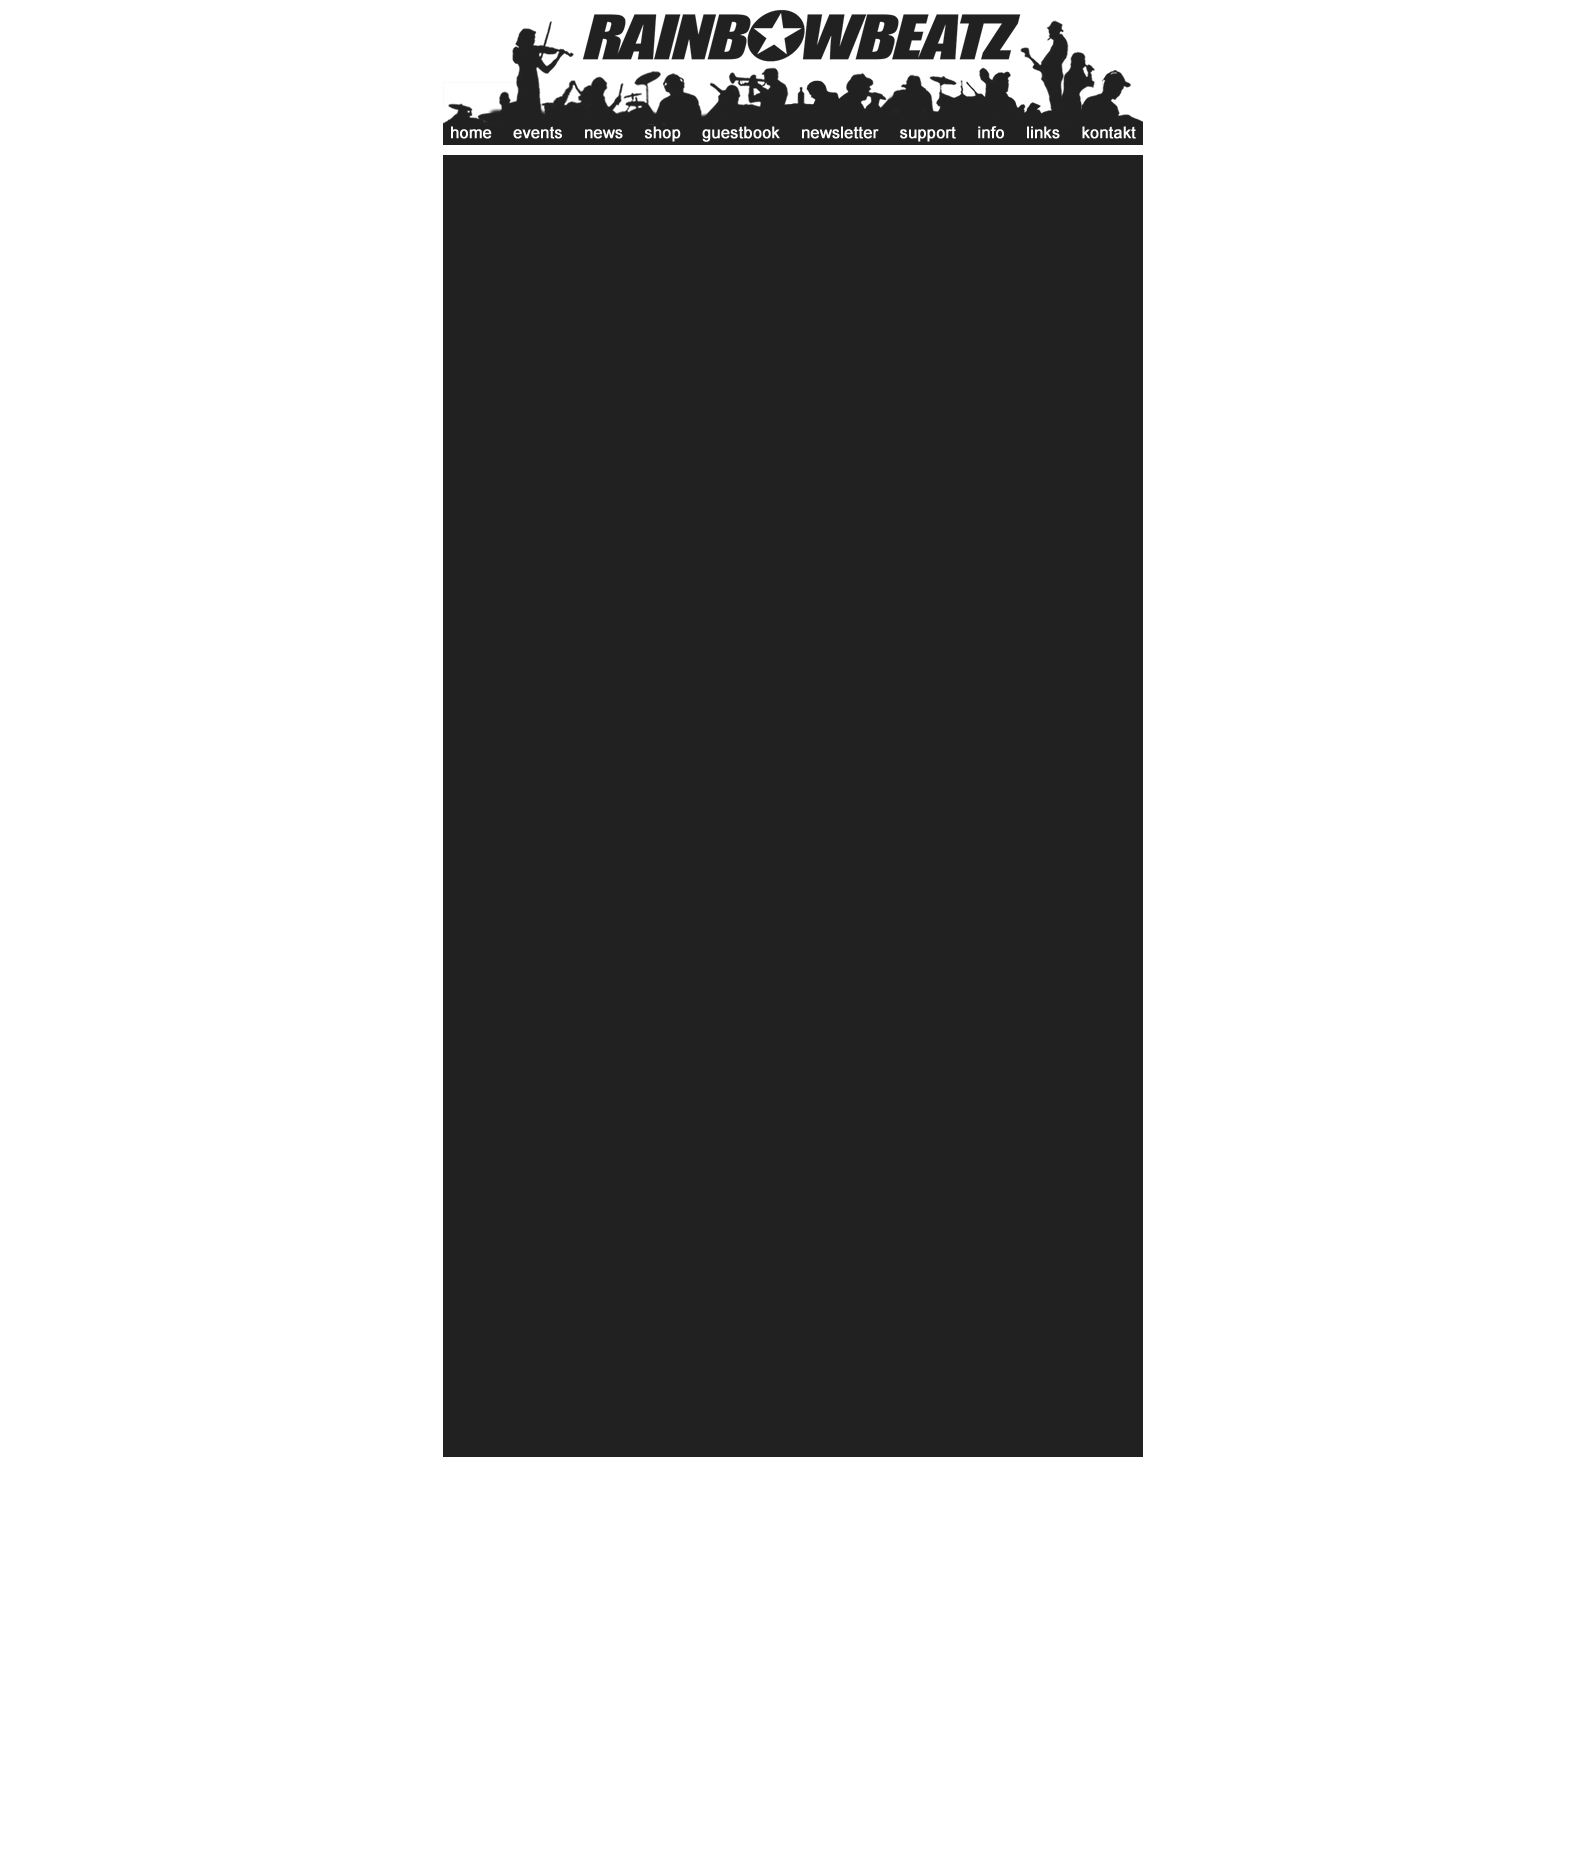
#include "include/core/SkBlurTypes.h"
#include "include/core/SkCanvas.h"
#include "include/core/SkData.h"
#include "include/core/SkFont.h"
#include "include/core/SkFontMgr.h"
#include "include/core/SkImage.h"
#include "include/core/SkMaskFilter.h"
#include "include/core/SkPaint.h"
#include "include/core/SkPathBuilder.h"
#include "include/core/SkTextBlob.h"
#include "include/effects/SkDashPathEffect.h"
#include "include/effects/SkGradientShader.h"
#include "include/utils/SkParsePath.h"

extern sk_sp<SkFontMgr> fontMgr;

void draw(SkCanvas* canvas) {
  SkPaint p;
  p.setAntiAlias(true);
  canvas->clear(SK_ColorWHITE);
  canvas->drawImageRect(SkImages::DeferredFromEncodedData(SkData::MakeFromFileName("images/1.png")), SkRect::MakeLTRB(443, 9, 1143, 125), SkSamplingOptions());
  canvas->drawImageRect(SkImages::DeferredFromEncodedData(SkData::MakeFromFileName("images/2.png")), SkRect::MakeLTRB(443, 125, 1143, 145), SkSamplingOptions());
  p.setColor(SkColorSetRGB(33, 33, 33));
  canvas->drawRect(SkRect::MakeLTRB(443, 155, 1143, 1457), p);
}
